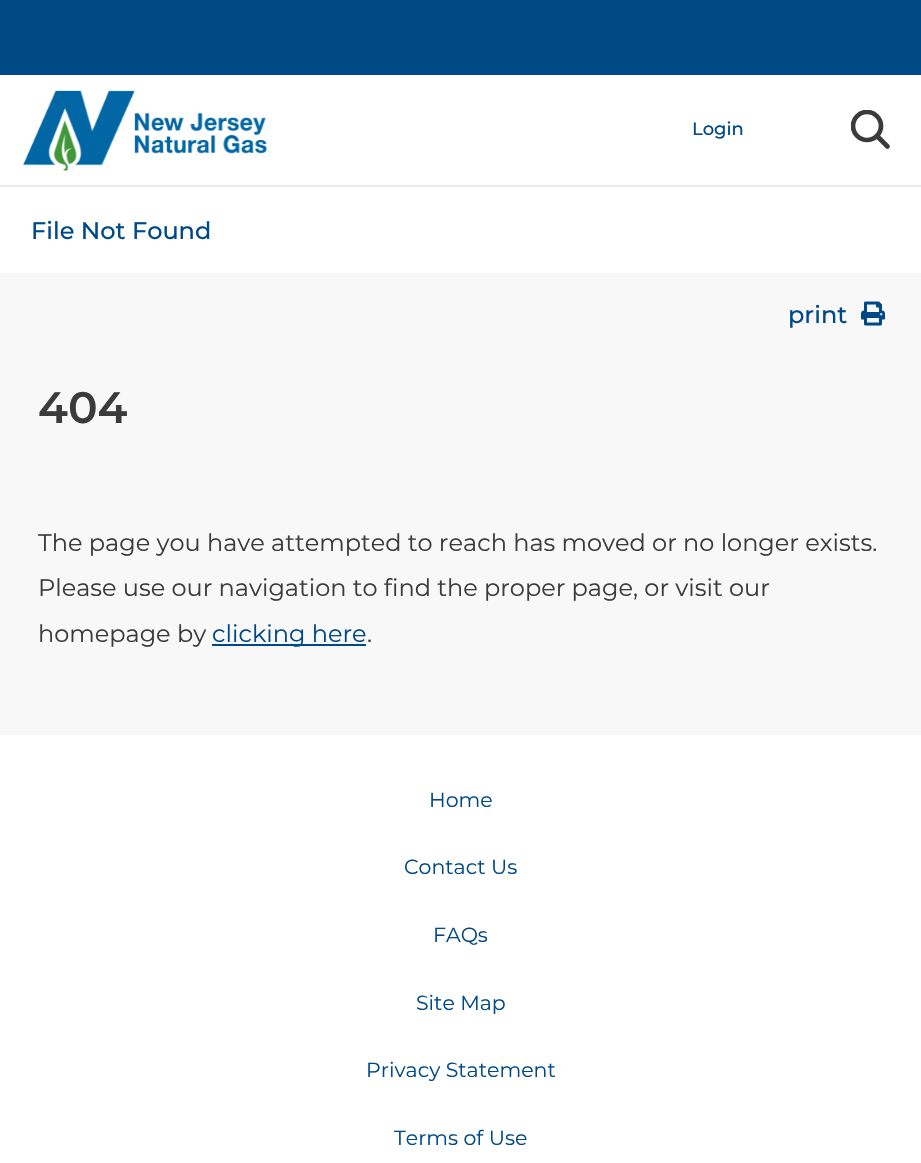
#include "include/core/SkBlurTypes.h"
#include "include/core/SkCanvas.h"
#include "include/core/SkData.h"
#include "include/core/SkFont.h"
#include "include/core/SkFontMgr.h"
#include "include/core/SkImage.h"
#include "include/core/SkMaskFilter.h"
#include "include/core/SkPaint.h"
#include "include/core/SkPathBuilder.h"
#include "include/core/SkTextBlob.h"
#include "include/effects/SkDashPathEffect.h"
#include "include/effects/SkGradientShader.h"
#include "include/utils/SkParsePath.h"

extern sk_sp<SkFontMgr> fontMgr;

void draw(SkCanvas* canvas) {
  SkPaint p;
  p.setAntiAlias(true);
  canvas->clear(SkColorSetRGB(248, 248, 248));
  p.setColor(SK_ColorWHITE);
  canvas->drawRect(SkRect::MakeLTRB(0, 75, 921, 185), p);
  p.setColor(SkColorSetRGB(233, 233, 233));
  canvas->drawRect(SkRect::MakeLTRB(0, 185, 921, 187), p);
  canvas->drawImageRect(SkImages::DeferredFromEncodedData(SkData::MakeFromFileName("images/1.png")), SkRect::MakeLTRB(23, 90, 267, 171), SkSamplingOptions());
  p.setColor(SkColorSetRGB(0, 73, 135));
  canvas->drawRect(SkRect::MakeLTRB(0, 0, 921, 75), p);
  canvas->save();
  canvas->clipRect(SkRect::MakeLTRB(851, 110, 891, 150));
  p.setStyle(SkPaint::kStroke_Style);
  p.setStrokeWidth(4.7f);
  p.setColor(SkColorSetRGB(59, 59, 59));
  canvas->drawCircle(867, 126, 14, p);
  canvas->restore();
  p.setStrokeCap(SkPaint::kRound_Cap);
  canvas->drawPath(SkPathBuilder().moveTo(877, 136).lineTo(887.5f, 146.5f).detach(), p);
  p.setStyle(SkPaint::kFill_Style);
  p.setColor(SK_ColorWHITE);
  canvas->drawRect(SkRect::MakeLTRB(0, 187, 921, 273), p);
  canvas->drawImageRect(SkImages::DeferredFromEncodedData(SkData::MakeFromFileName("images/2.png")), SkRect::MakeLTRB(861, 301, 885, 326), SkSamplingOptions());
  p.setColor(SkColorSetRGB(0, 73, 135));
  canvas->drawRect(SkRect::MakeLTRB(212, 644, 366, 646), p);
  p.setColor(SK_ColorWHITE);
  canvas->drawRect(SkRect::MakeLTRB(0, 735, 921, 1163), p);
  SkFont font1(fontMgr->matchFamilyStyle("Montserrat", SkFontStyle(500, SkFontStyle::kNormal_Width, SkFontStyle::kUpright_Slant)), 18);
  font1.setSubpixel(true);
  p.setColor(SkColorSetRGB(0, 73, 135));
  canvas->drawString("Login", 692, 135, font1, p);
  SkFont font2(fontMgr->matchFamilyStyle("Montserrat", SkFontStyle(500, SkFontStyle::kNormal_Width, SkFontStyle::kUpright_Slant)), 24);
  font2.setSubpixel(true);
  canvas->drawString("File Not Found", 31, 239, font2, p);
  canvas->drawString("print", 788, 323, font2, p);
  SkFont font3(fontMgr->matchFamilyStyle("Montserrat", SkFontStyle(600, SkFontStyle::kNormal_Width, SkFontStyle::kUpright_Slant)), 44);
  font3.setSubpixel(true);
  p.setColor(SkColorSetRGB(59, 59, 59));
  canvas->drawString("404", 38, 423, font3, p);
  SkFont font4(fontMgr->matchFamilyStyle("Montserrat", SkFontStyle::Normal()), 24);
  font4.setSubpixel(true);
  canvas->drawString("The page you have attempted to reach has moved or no longer exists.", 38, 551, font4, p);
  canvas->drawString("Please use our navigation to find the proper page, or visit our", 38, 596, font4, p);
  canvas->drawString("homepage by", 38, 642, font4, p);
  p.setColor(SkColorSetRGB(0, 73, 135));
  canvas->drawString("clicking here", 212, 642, font4, p);
  p.setColor(SkColorSetRGB(59, 59, 59));
  canvas->drawString(".", 367, 642, font4, p);
  SkFont font5(fontMgr->matchFamilyStyle("Montserrat", SkFontStyle::Normal()), 20.5f);
  font5.setSubpixel(true);
  p.setColor(SkColorSetRGB(0, 73, 135));
  canvas->drawString("Home", 429, 807, font5, p);
  canvas->drawString("Contact Us", 404, 874, font5, p);
  canvas->drawString("FAQs", 433, 942, font5, p);
  canvas->drawString("Site Map", 416, 1010, font5, p);
  canvas->drawString("Privacy Statement", 366, 1077, font5, p);
  canvas->drawString("Terms of Use", 394, 1145, font5, p);
}
